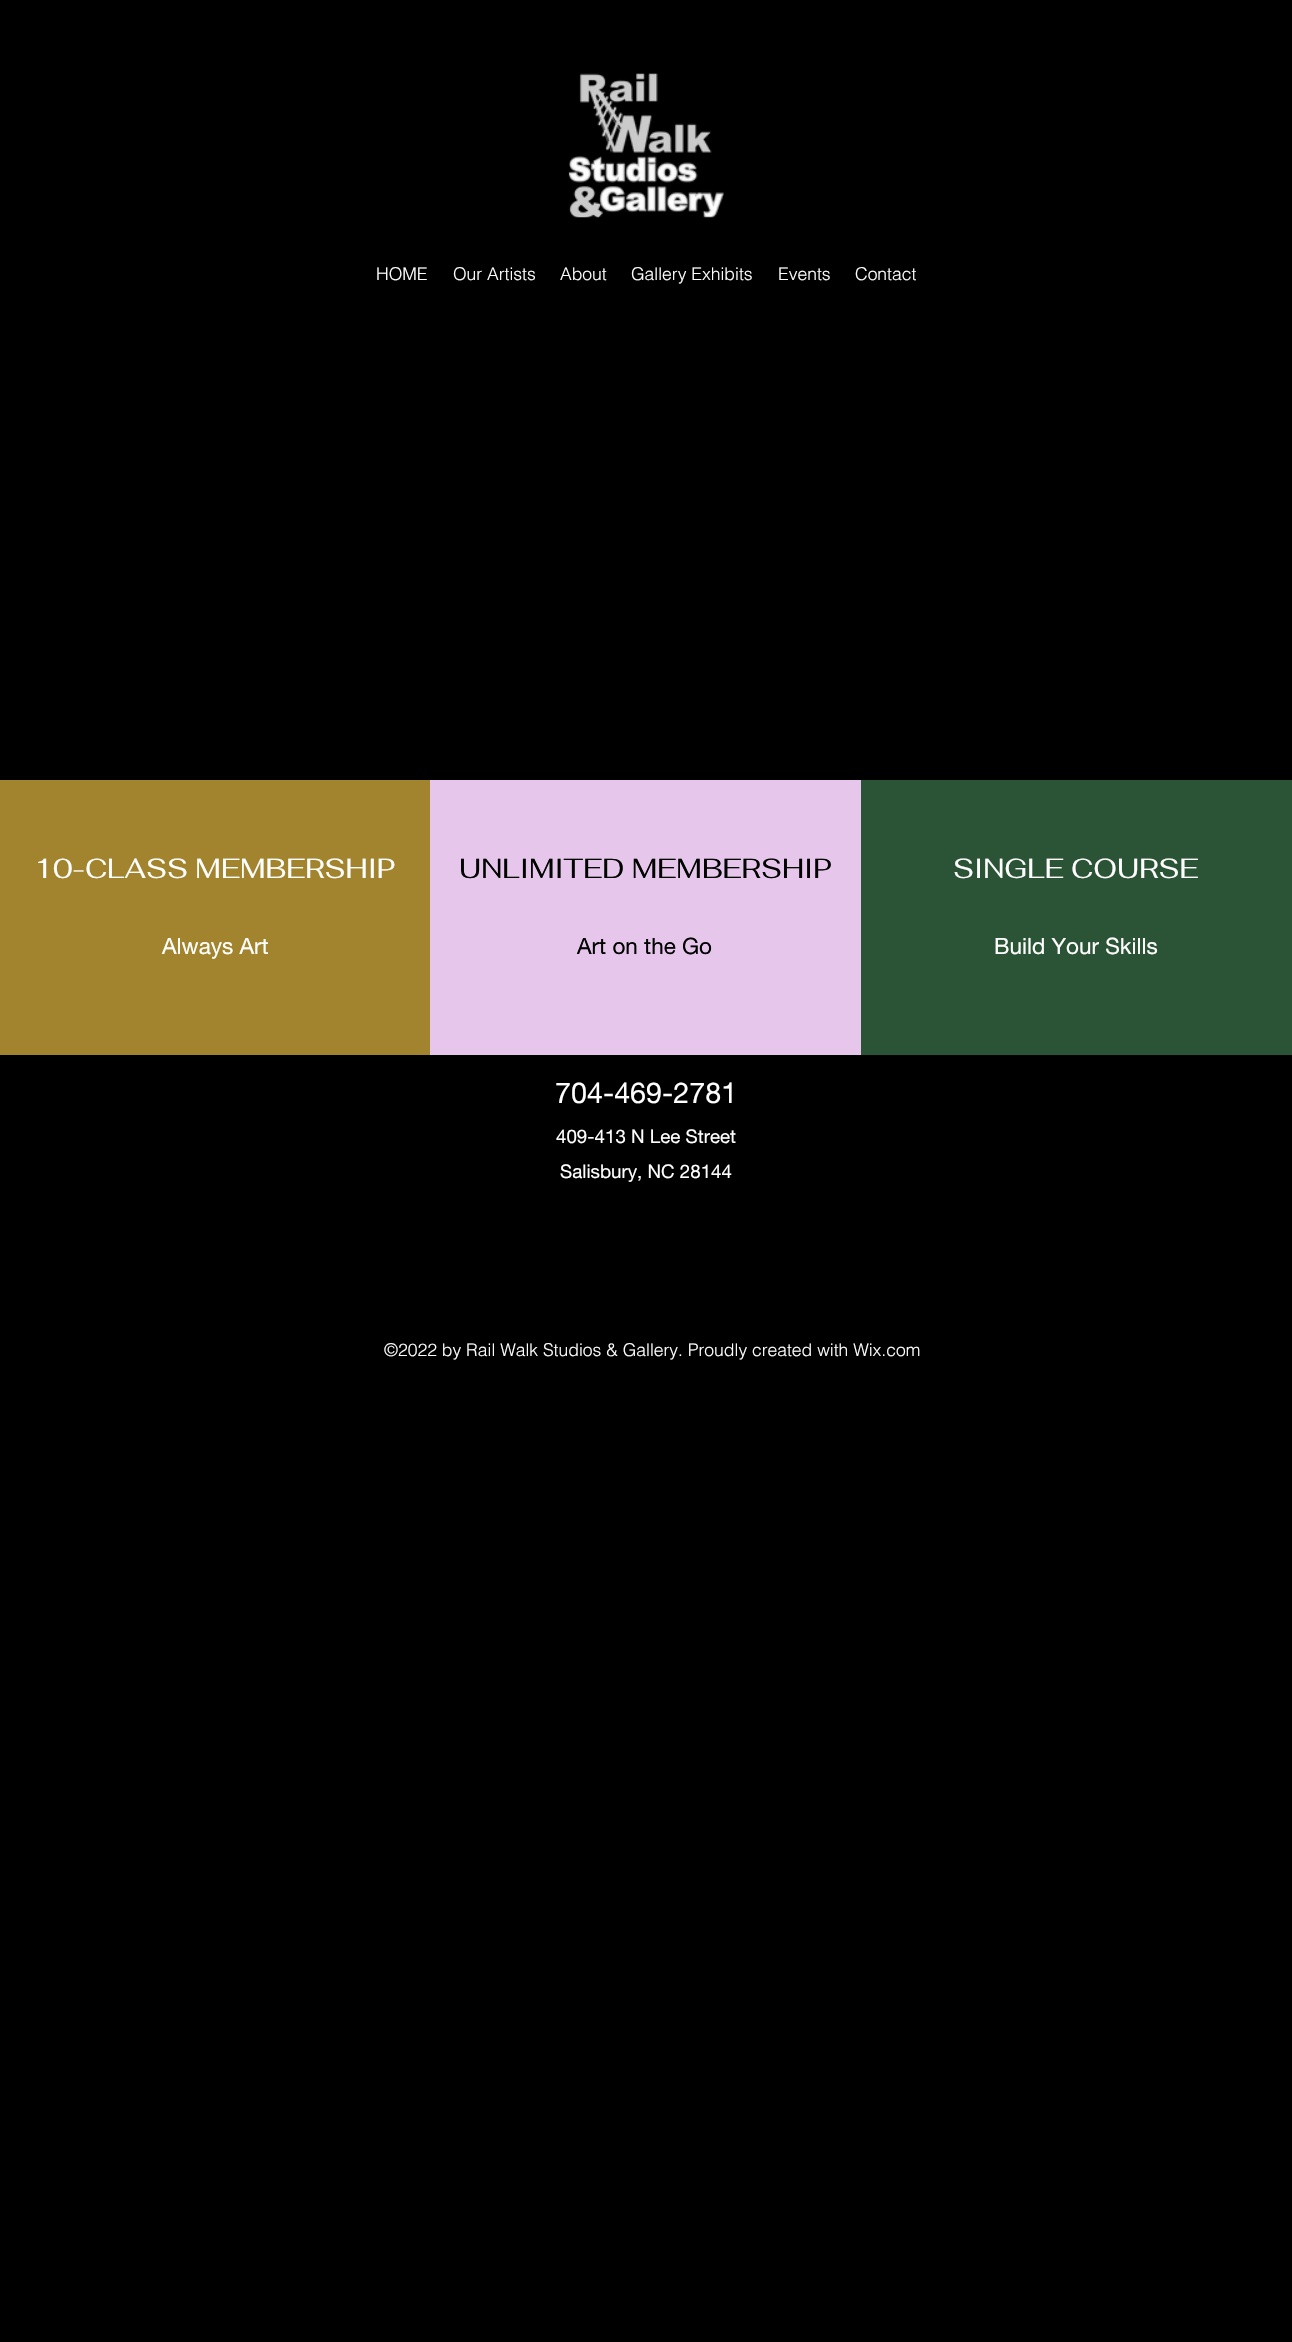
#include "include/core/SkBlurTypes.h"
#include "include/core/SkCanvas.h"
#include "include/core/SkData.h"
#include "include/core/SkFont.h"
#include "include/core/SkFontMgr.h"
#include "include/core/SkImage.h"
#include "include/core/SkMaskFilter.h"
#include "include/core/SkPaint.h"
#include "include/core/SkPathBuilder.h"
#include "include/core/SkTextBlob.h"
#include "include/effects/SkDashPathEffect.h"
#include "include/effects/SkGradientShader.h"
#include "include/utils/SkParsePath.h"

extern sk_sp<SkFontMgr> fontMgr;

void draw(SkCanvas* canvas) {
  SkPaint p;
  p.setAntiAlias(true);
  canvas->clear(SK_ColorBLACK);
  canvas->drawImageRect(SkImages::DeferredFromEncodedData(SkData::MakeFromFileName("images/1.png")), SkRect::MakeLTRB(568, 73, 724, 218), SkSamplingOptions());
  p.setColor(SkColorSetRGB(163, 132, 46));
  canvas->drawRect(SkRect::MakeLTRB(0, 780, 430, 1055), p);
  p.setColor(SkColorSetRGB(230, 199, 235));
  canvas->drawRect(SkRect::MakeLTRB(430, 780, 861, 1055), p);
  p.setColor(SkColorSetRGB(43, 83, 54));
  canvas->drawRect(SkRect::MakeLTRB(861, 780, 1292, 1055), p);
  SkFont font1(fontMgr->matchFamilyStyle("helvetica", SkFontStyle(300, SkFontStyle::kNormal_Width, SkFontStyle::kUpright_Slant)), 17.5f);
  font1.setSubpixel(true);
  p.setColor(SK_ColorWHITE);
  canvas->drawString("HOME", 376, 280, font1, p);
  canvas->drawString("Our Artists", 453, 280, font1, p);
  canvas->drawString("About", 560, 280, font1, p);
  canvas->drawString("Gallery Exhibits", 631, 280, font1, p);
  canvas->drawString("Events", 778, 280, font1, p);
  canvas->drawString("Contact", 855, 280, font1, p);
  SkFont font2(fontMgr->matchFamilyStyle("Fahkwang", SkFontStyle::Normal()), 27.5f);
  font2.setSubpixel(true);
  canvas->drawString("10-CLASS MEMBERSHIP", 34, 878, font2, p);
  SkFont font3(fontMgr->matchFamilyStyle("helvetica neue", SkFontStyle::Normal()), 22.5f);
  font3.setSubpixel(true);
  canvas->drawString("Always Art", 162, 954, font3, p);
  p.setColor(SK_ColorBLACK);
  canvas->drawString("UNLIMITED MEMBERSHIP", 459, 878, font2, p);
  canvas->drawString("Art on the Go", 577, 954, font3, p);
  p.setColor(SK_ColorWHITE);
  canvas->drawString("SINGLE COURSE", 953, 878, font2, p);
  canvas->drawString("Build Your Skills", 994, 954, font3, p);
  SkFont font4(fontMgr->matchFamilyStyle("helvetica neue", SkFontStyle::Normal()), 28.75f);
  font4.setSubpixel(true);
  canvas->drawString("704-469-2781", 555, 1103, font4, p);
  SkFont font5(fontMgr->matchFamilyStyle("helvetica neue", SkFontStyle::Normal()), 18.75f);
  font5.setSubpixel(true);
  canvas->drawString("409-413 N Lee Street", 556, 1143, font5, p);
  canvas->drawString("Salisbury, NC 28144", 560, 1178, font5, p);
  canvas->drawString("©2022 by Rail Walk Studios & Gallery. Proudly created with Wix.com", 384, 1356, font1, p);
}
